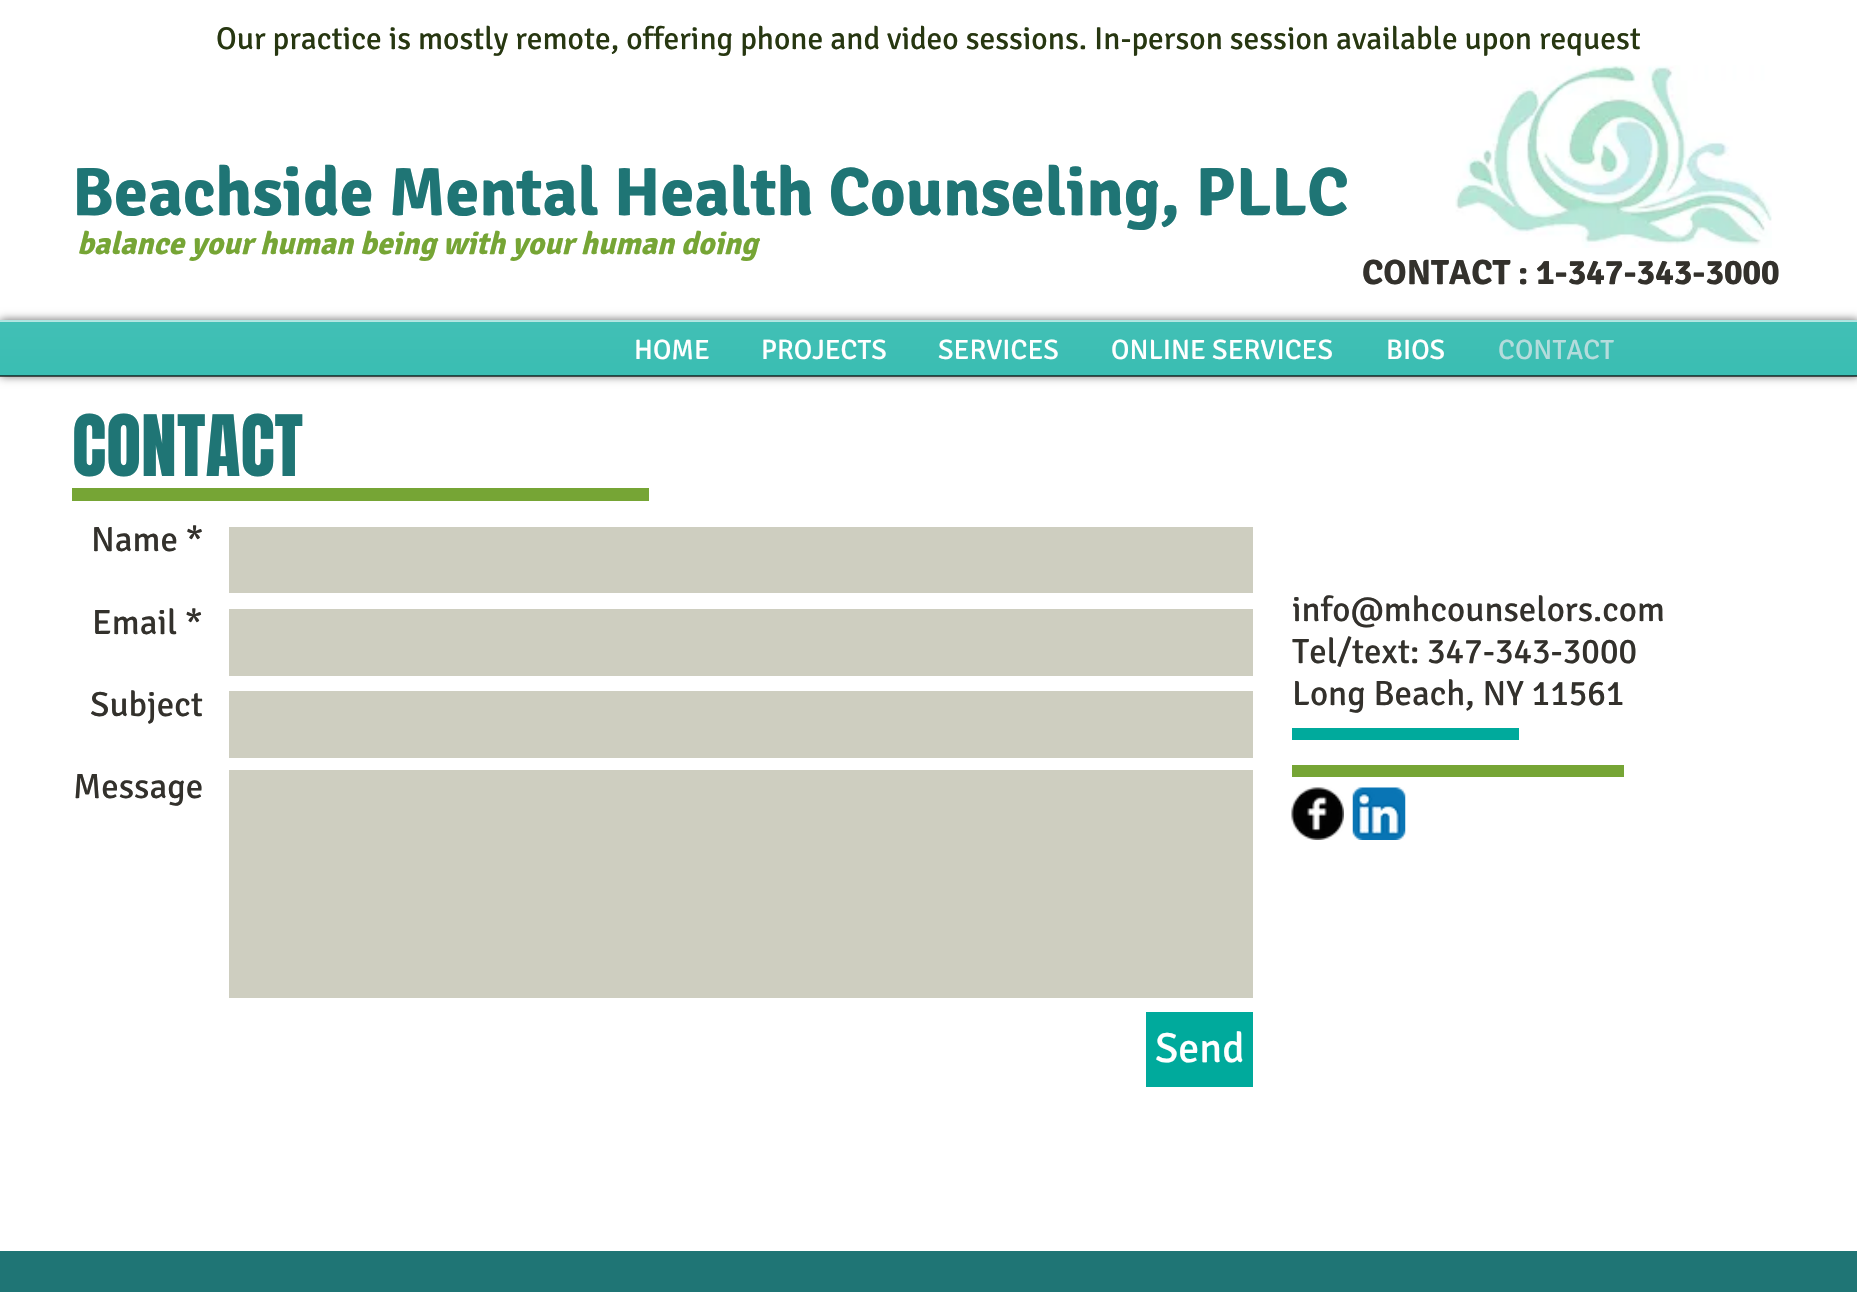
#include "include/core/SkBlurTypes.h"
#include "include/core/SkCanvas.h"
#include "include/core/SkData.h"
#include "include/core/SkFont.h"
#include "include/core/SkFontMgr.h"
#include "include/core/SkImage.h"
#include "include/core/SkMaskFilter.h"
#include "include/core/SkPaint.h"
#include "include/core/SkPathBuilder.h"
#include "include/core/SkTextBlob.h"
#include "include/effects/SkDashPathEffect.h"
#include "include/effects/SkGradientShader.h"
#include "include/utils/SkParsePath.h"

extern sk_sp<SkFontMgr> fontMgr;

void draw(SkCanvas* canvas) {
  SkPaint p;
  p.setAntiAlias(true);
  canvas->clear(SK_ColorWHITE);
  canvas->drawImageRect(SkImages::DeferredFromEncodedData(SkData::MakeFromFileName("images/1.png")), SkRect::MakeLTRB(1455, 65, 1772, 248), SkSamplingOptions());
  p.setColor(SkColorSetARGB(153, 0, 0, 0));
  p.setMaskFilter(SkMaskFilter::MakeBlur(kNormal_SkBlurStyle, 4.5f));
  canvas->drawRect(SkRect::MakeLTRB(0, 320, 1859, 376), p);
  p.setMaskFilter(nullptr);
  p.setColor(SkColorSetRGB(0, 170, 156));
  canvas->drawRect(SkRect::MakeLTRB(0, 320, 1857, 376), p);
  canvas->drawImageRect(SkImages::DeferredFromEncodedData(SkData::MakeFromFileName("images/2.png")), SkRect::MakeLTRB(0, 320, 1857, 376), SkSamplingOptions());
  p.setColor(SkColorSetARGB(153, 0, 0, 0));
  canvas->drawRect(SkRect::MakeLTRB(0, 375, 1857, 377), p);
  p.setColor(SkColorSetARGB(153, 255, 255, 255));
  canvas->drawRect(SkRect::MakeLTRB(0, 320, 1857, 322), p);
  p.setColor(SkColorSetRGB(118, 165, 53));
  canvas->drawRect(SkRect::MakeLTRB(72, 488, 649, 501), p);
  p.setColor(SkColorSetRGB(206, 206, 192));
  canvas->drawRect(SkRect::MakeLTRB(229, 527, 1253, 593), p);
  canvas->drawRect(SkRect::MakeLTRB(229, 609, 1253, 676), p);
  canvas->drawRect(SkRect::MakeLTRB(229, 691, 1253, 758), p);
  canvas->drawRect(SkRect::MakeLTRB(229, 770, 1253, 998), p);
  p.setColor(SkColorSetRGB(0, 170, 156));
  canvas->drawRect(SkRect::MakeLTRB(1146, 1012, 1253, 1087), p);
  canvas->drawRect(SkRect::MakeLTRB(1292, 728, 1519, 740), p);
  p.setColor(SkColorSetRGB(118, 165, 53));
  canvas->drawRect(SkRect::MakeLTRB(1292, 765, 1624, 777), p);
  canvas->drawImageRect(SkImages::DeferredFromEncodedData(SkData::MakeFromFileName("images/3.png")), SkRect::MakeLTRB(1291, 787, 1344, 840), SkSamplingOptions());
  canvas->drawImageRect(SkImages::DeferredFromEncodedData(SkData::MakeFromFileName("images/4.png")), SkRect::MakeLTRB(1352, 787, 1406, 840), SkSamplingOptions());
  p.setColor(SkColorSetRGB(31, 117, 117));
  canvas->drawRect(SkRect::MakeLTRB(0, 1251, 1857, 1292), p);
  SkFont font1(fontMgr->matchFamilyStyle("Signika", SkFontStyle::Normal()), 31.5f);
  font1.setSubpixel(true);
  p.setColor(SkColorSetRGB(39, 55, 17));
  canvas->drawString("Our practice is mostly remote, offering phone and video sessions. In-person session available upon request", 216, 49, font1, p);
  SkFont font2(fontMgr->matchFamilyStyle("Signika", SkFontStyle::Bold()), 68.25f);
  font2.setSubpixel(true);
  p.setColor(SkColorSetRGB(31, 117, 117));
  canvas->drawString("Beachside Mental Health Counseling, PLLC", 72, 215, font2, p);
  SkFont font3(fontMgr->matchFamilyStyle("Signika", SkFontStyle::BoldItalic()), 31.5f);
  font3.setSubpixel(true);
  p.setColor(SkColorSetRGB(118, 165, 53));
  canvas->drawString("balance your human being with your human doing", 77, 254, font3, p);
  SkFont font4(fontMgr->matchFamilyStyle("Signika", SkFontStyle::Bold()), 35);
  font4.setSubpixel(true);
  p.setColor(SkColorSetRGB(51, 49, 44));
  canvas->drawString("CONTACT : 1-347-343-3000", 1362, 284, font4, p);
  SkFont font5(fontMgr->matchFamilyStyle("Signika", SkFontStyle::Normal()), 28);
  font5.setSubpixel(true);
  p.setColor(SK_ColorWHITE);
  canvas->drawString("HOME", 634, 359, font5, p);
  canvas->drawString("PROJECTS", 761, 359, font5, p);
  canvas->drawString("SERVICES", 938, 359, font5, p);
  canvas->drawString("ONLINE SERVICES", 1111, 359, font5, p);
  canvas->drawString("BIOS", 1386, 359, font5, p);
  p.setColor(SkColorSetRGB(180, 220, 220));
  canvas->drawString("CONTACT", 1498, 359, font5, p);
  SkFont font6(fontMgr->matchFamilyStyle("Anton", SkFontStyle::Normal()), 72);
  font6.setSubpixel(true);
  p.setColor(SkColorSetRGB(31, 117, 117));
  canvas->drawString("CONTACT", 72, 476, font6, p);
  SkFont font7(fontMgr->matchFamilyStyle("Signika", SkFontStyle::Normal()), 35);
  font7.setSubpixel(true);
  p.setColor(SkColorSetRGB(51, 49, 44));
  canvas->drawString("Name *", 91, 551, font7, p);
  canvas->drawString("Email *", 92, 634, font7, p);
  canvas->drawString("Subject", 90, 716, font7, p);
  canvas->drawString("Message", 73, 798, font7, p);
  SkFont font8(fontMgr->matchFamilyStyle("Signika", SkFontStyle::Normal()), 42);
  font8.setSubpixel(true);
  p.setColor(SK_ColorWHITE);
  canvas->drawString("Send", 1155, 1062, font8, p);
  p.setColor(SkColorSetRGB(51, 49, 44));
  canvas->drawString("info@mhcounselors.com", 1292, 621, font7, p);
  canvas->drawString("Tel/text: 347-343-3000", 1292, 663, font7, p);
  canvas->drawString("Long Beach, NY 11561", 1292, 705, font7, p);
}
